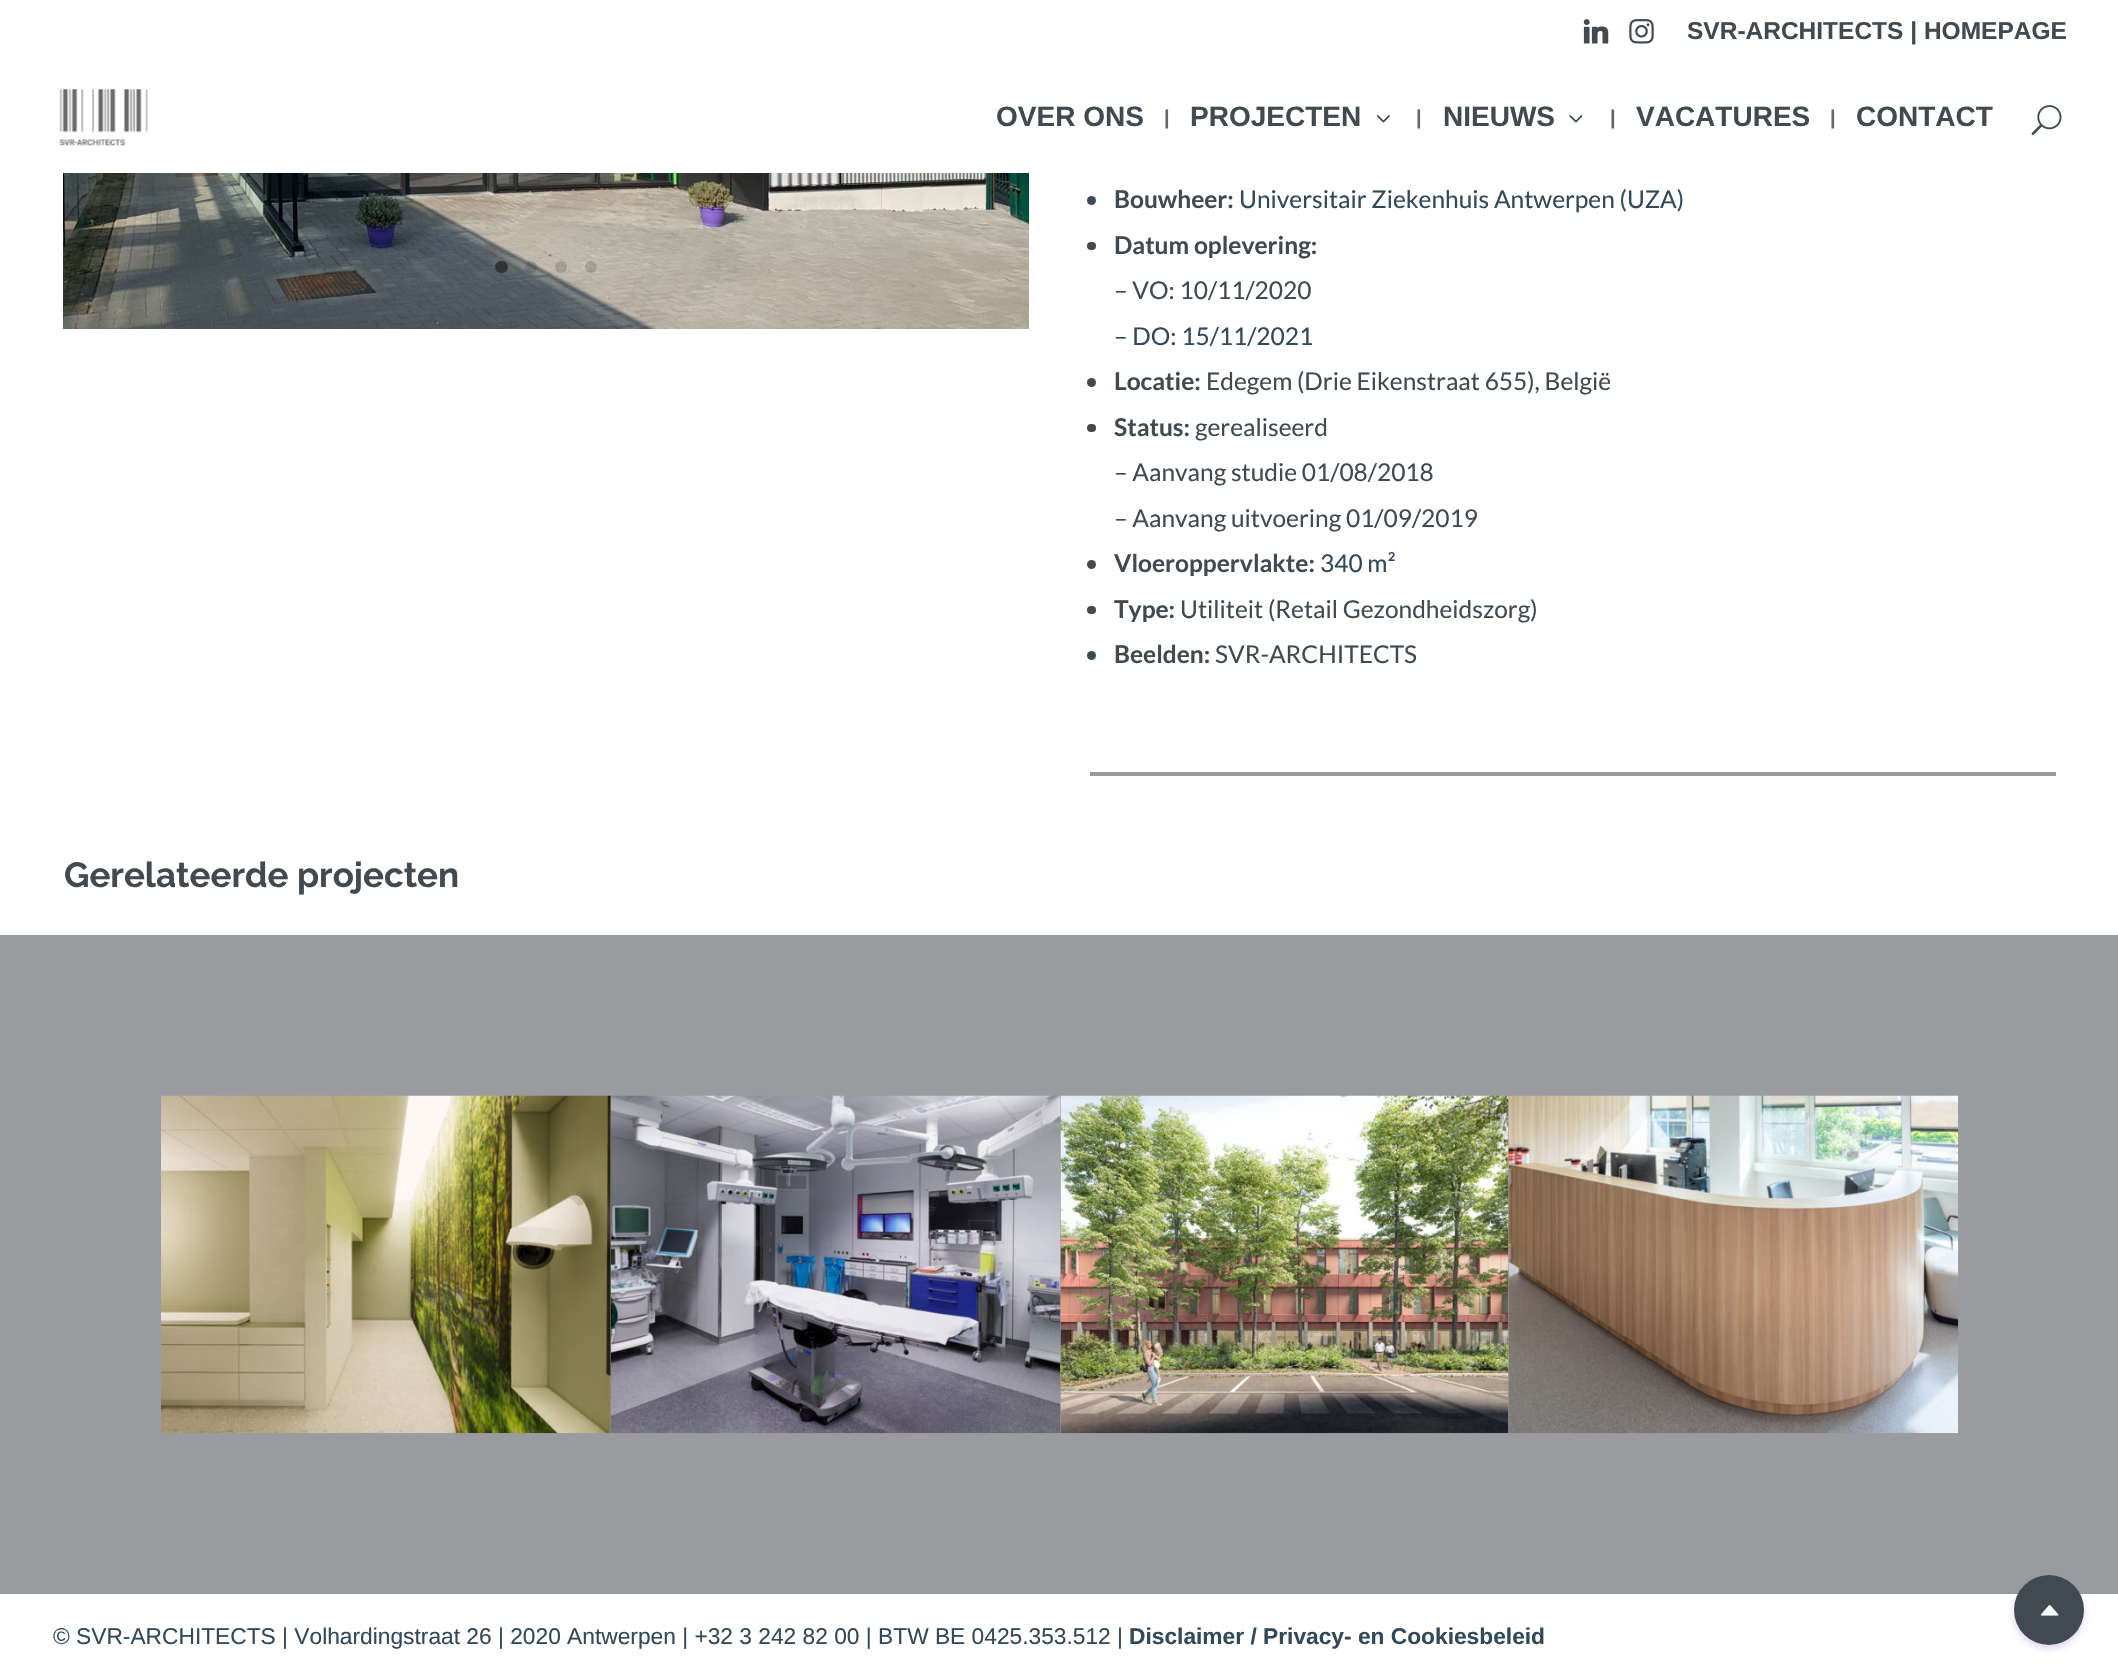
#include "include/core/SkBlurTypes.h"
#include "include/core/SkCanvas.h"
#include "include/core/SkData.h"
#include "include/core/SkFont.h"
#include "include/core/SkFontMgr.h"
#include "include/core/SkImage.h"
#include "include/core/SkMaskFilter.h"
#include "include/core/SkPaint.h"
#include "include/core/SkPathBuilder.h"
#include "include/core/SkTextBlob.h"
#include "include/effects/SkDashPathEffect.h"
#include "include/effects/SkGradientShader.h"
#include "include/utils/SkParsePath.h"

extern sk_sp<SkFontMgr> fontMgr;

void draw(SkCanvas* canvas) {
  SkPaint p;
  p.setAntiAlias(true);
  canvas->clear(SK_ColorWHITE);
  canvas->drawImageRect(SkImages::DeferredFromEncodedData(SkData::MakeFromFileName("images/1.png")), SkRect::MakeLTRB(1583, 19, 1609, 44), SkSamplingOptions());
  canvas->drawImageRect(SkImages::DeferredFromEncodedData(SkData::MakeFromFileName("images/2.png")), SkRect::MakeLTRB(1629, 19, 1654, 44), SkSamplingOptions());
  canvas->drawImageRect(SkImages::DeferredFromEncodedData(SkData::MakeFromFileName("images/3.png")), SkRect::MakeLTRB(59, 89, 148, 146), SkSamplingOptions());
  canvas->drawImageRect(SkImages::DeferredFromEncodedData(SkData::MakeFromFileName("images/4.png")), SkRect::MakeLTRB(1376, 115, 1390, 123), SkSamplingOptions());
  canvas->drawImageRect(SkImages::DeferredFromEncodedData(SkData::MakeFromFileName("images/5.png")), SkRect::MakeLTRB(1569, 115, 1583, 123), SkSamplingOptions());
  canvas->drawImageRect(SkImages::DeferredFromEncodedData(SkData::MakeFromFileName("images/6.png")), SkRect::MakeLTRB(2031, 105, 2062, 135), SkSamplingOptions());
  canvas->drawImageRect(SkImages::DeferredFromEncodedData(SkData::MakeFromFileName("images/7.png")), SkRect::MakeLTRB(63, 173, 1029, 329), SkSamplingOptions());
  p.setColor(SkColorSetRGB(51, 51, 51));
  canvas->drawRoundRect(SkRect::MakeLTRB(495, 261, 508, 273), 6, 6, p);
  p.setColor(SkColorSetARGB(38, 0, 0, 0));
  canvas->drawCircle(531, 267, 6, p);
  canvas->drawCircle(561, 267, 6, p);
  canvas->drawCircle(591, 267, 6, p);
  p.setColor(SkColorSetRGB(65, 74, 81));
  canvas->drawCircle(1091.5f, 200.5f, 4.5f, p);
  canvas->drawRoundRect(SkRect::MakeLTRB(1087, 242, 1096, 250), 4, 4, p);
  canvas->drawCircle(1091.5f, 382.5f, 4.5f, p);
  canvas->drawRoundRect(SkRect::MakeLTRB(1087, 424, 1096, 432), 4, 4, p);
  canvas->drawCircle(1091.5f, 564.5f, 4.5f, p);
  canvas->drawRoundRect(SkRect::MakeLTRB(1087, 606, 1096, 614), 4, 4, p);
  canvas->drawCircle(1091.5f, 655.5f, 4.5f, p);
  p.setColor(SkColorSetRGB(153, 155, 158));
  canvas->drawRect(SkRect::MakeLTRB(1090, 772, 2056, 776), p);
  canvas->drawRect(SkRect::MakeLTRB(0, 935, 2118, 1594), p);
  canvas->drawImageRect(SkImages::DeferredFromEncodedData(SkData::MakeFromFileName("images/8.png")), SkRect::MakeLTRB(161, 1095, 611, 1434), SkSamplingOptions());
  canvas->drawImageRect(SkImages::DeferredFromEncodedData(SkData::MakeFromFileName("images/9.png")), SkRect::MakeLTRB(610, 1095, 1061, 1434), SkSamplingOptions());
  canvas->drawImageRect(SkImages::DeferredFromEncodedData(SkData::MakeFromFileName("images/10.png")), SkRect::MakeLTRB(1060, 1095, 1509, 1434), SkSamplingOptions());
  canvas->drawImageRect(SkImages::DeferredFromEncodedData(SkData::MakeFromFileName("images/11.png")), SkRect::MakeLTRB(1508, 1095, 1959, 1434), SkSamplingOptions());
  p.setColor(SkColorSetARGB(51, 108, 46, 185));
  p.setMaskFilter(SkMaskFilter::MakeBlur(kNormal_SkBlurStyle, 3.5f));
  canvas->drawRoundRect(SkRect::MakeLTRB(2014, 1579, 2084, 1649), 35, 35, p);
  p.setMaskFilter(nullptr);
  p.setColor(SkColorSetRGB(65, 74, 81));
  canvas->drawCircle(2049, 1610, 35, p);
  canvas->drawImageRect(SkImages::DeferredFromEncodedData(SkData::MakeFromFileName("images/12.png")), SkRect::MakeLTRB(2041, 1605, 2059, 1616), SkSamplingOptions());
  SkFont font1(fontMgr->matchFamilyStyle("Liberation Sans", SkFontStyle::Bold()), 24.5f);
  font1.setSubpixel(true);
  canvas->drawString("SVR-ARCHITECTS | HOMEPAGE", 1687, 39, font1, p);
  SkFont font2(fontMgr->matchFamilyStyle("Liberation Sans", SkFontStyle::Bold()), 28);
  font2.setSubpixel(true);
  canvas->drawString("OVER ONS", 996, 126, font2, p);
  SkFont font3(fontMgr->matchFamilyStyle("Liberation Sans", SkFontStyle::Bold()), 20);
  font3.setSubpixel(true);
  p.setColor(SkColorSetRGB(102, 102, 102));
  canvas->drawString("|", 1164, 124, font3, p);
  p.setColor(SkColorSetRGB(65, 74, 81));
  canvas->drawString("PROJECTEN", 1190, 126, font2, p);
  p.setColor(SkColorSetRGB(102, 102, 102));
  canvas->drawString("|", 1416, 124, font3, p);
  p.setColor(SkColorSetRGB(65, 74, 81));
  canvas->drawString("NIEUWS", 1443, 126, font2, p);
  p.setColor(SkColorSetRGB(102, 102, 102));
  canvas->drawString("|", 1610, 124, font3, p);
  p.setColor(SkColorSetRGB(65, 74, 81));
  canvas->drawString("VACATURES", 1636, 126, font2, p);
  p.setColor(SkColorSetRGB(102, 102, 102));
  canvas->drawString("|", 1830, 124, font3, p);
  p.setColor(SkColorSetRGB(65, 74, 81));
  canvas->drawString("CONTACT", 1856, 126, font2, p);
  SkFont font4(fontMgr->matchFamilyStyle("Lato", SkFontStyle::Bold()), 24.5f);
  font4.setSubpixel(true);
  canvas->drawString("Bouwheer:", 1114, 208, font4, p);
  SkFont font5(fontMgr->matchFamilyStyle("Lato", SkFontStyle::Normal()), 24.5f);
  font5.setSubpixel(true);
  p.setColor(SkColorSetRGB(49, 73, 90));
  canvas->drawString("Universitair Ziekenhuis Antwerpen (UZA)", 1239, 208, font5, p);
  p.setColor(SkColorSetRGB(65, 74, 81));
  canvas->drawString("Datum oplevering:", 1114, 254, font4, p);
  canvas->drawString("– VO: 10/11/2020", 1114, 299, font5, p);
  p.setColor(SkColorSetRGB(49, 73, 90));
  canvas->drawString("– DO: 15/11/2021", 1114, 345, font5, p);
  p.setColor(SkColorSetRGB(65, 74, 81));
  canvas->drawString("Locatie:", 1114, 390, font4, p);
  canvas->drawString("Edegem (Drie Eikenstraat 655), België", 1206, 390, font5, p);
  canvas->drawString("Status:", 1114, 436, font4, p);
  canvas->drawString("gerealiseerd", 1195, 436, font5, p);
  canvas->drawString("– Aanvang studie 01/08/2018", 1114, 481, font5, p);
  canvas->drawString("– Aanvang uitvoering 01/09/2019", 1114, 527, font5, p);
  canvas->drawString("Vloeroppervlakte:", 1114, 572, font4, p);
  p.setColor(SkColorSetRGB(49, 73, 90));
  canvas->drawString("340 m²", 1320, 572, font5, p);
  p.setColor(SkColorSetRGB(65, 74, 81));
  canvas->drawString("Type:", 1114, 618, font4, p);
  canvas->drawString("Utiliteit (Retail Gezondheidszorg)", 1180, 618, font5, p);
  canvas->drawString("Beelden:", 1114, 663, font4, p);
  canvas->drawString("SVR-ARCHITECTS", 1215, 663, font5, p);
  SkFont font6(fontMgr->matchFamilyStyle("Raleway", SkFontStyle(100, SkFontStyle::kNormal_Width, SkFontStyle::kUpright_Slant)), 35);
  font6.setSubpixel(true);
  canvas->drawString("Gerelateerde projecten", 64, 887, font6, p);
  SkFont font7(fontMgr->matchFamilyStyle("Liberation Sans", SkFontStyle::Normal()), 22.75f);
  font7.setSubpixel(true);
  p.setColor(SkColorSetRGB(49, 73, 90));
  canvas->drawString("© SVR-ARCHITECTS | Volhardingstraat 26 | 2020 Antwerpen | +32 3 242 82 00 | BTW BE 0425.353.512 |", 53, 1644, font7, p);
  SkFont font8(fontMgr->matchFamilyStyle("Liberation Sans", SkFontStyle::Bold()), 22.75f);
  font8.setSubpixel(true);
  canvas->drawString("Disclaimer / Privacy- en Cookiesbeleid", 1129, 1644, font8, p);
}
